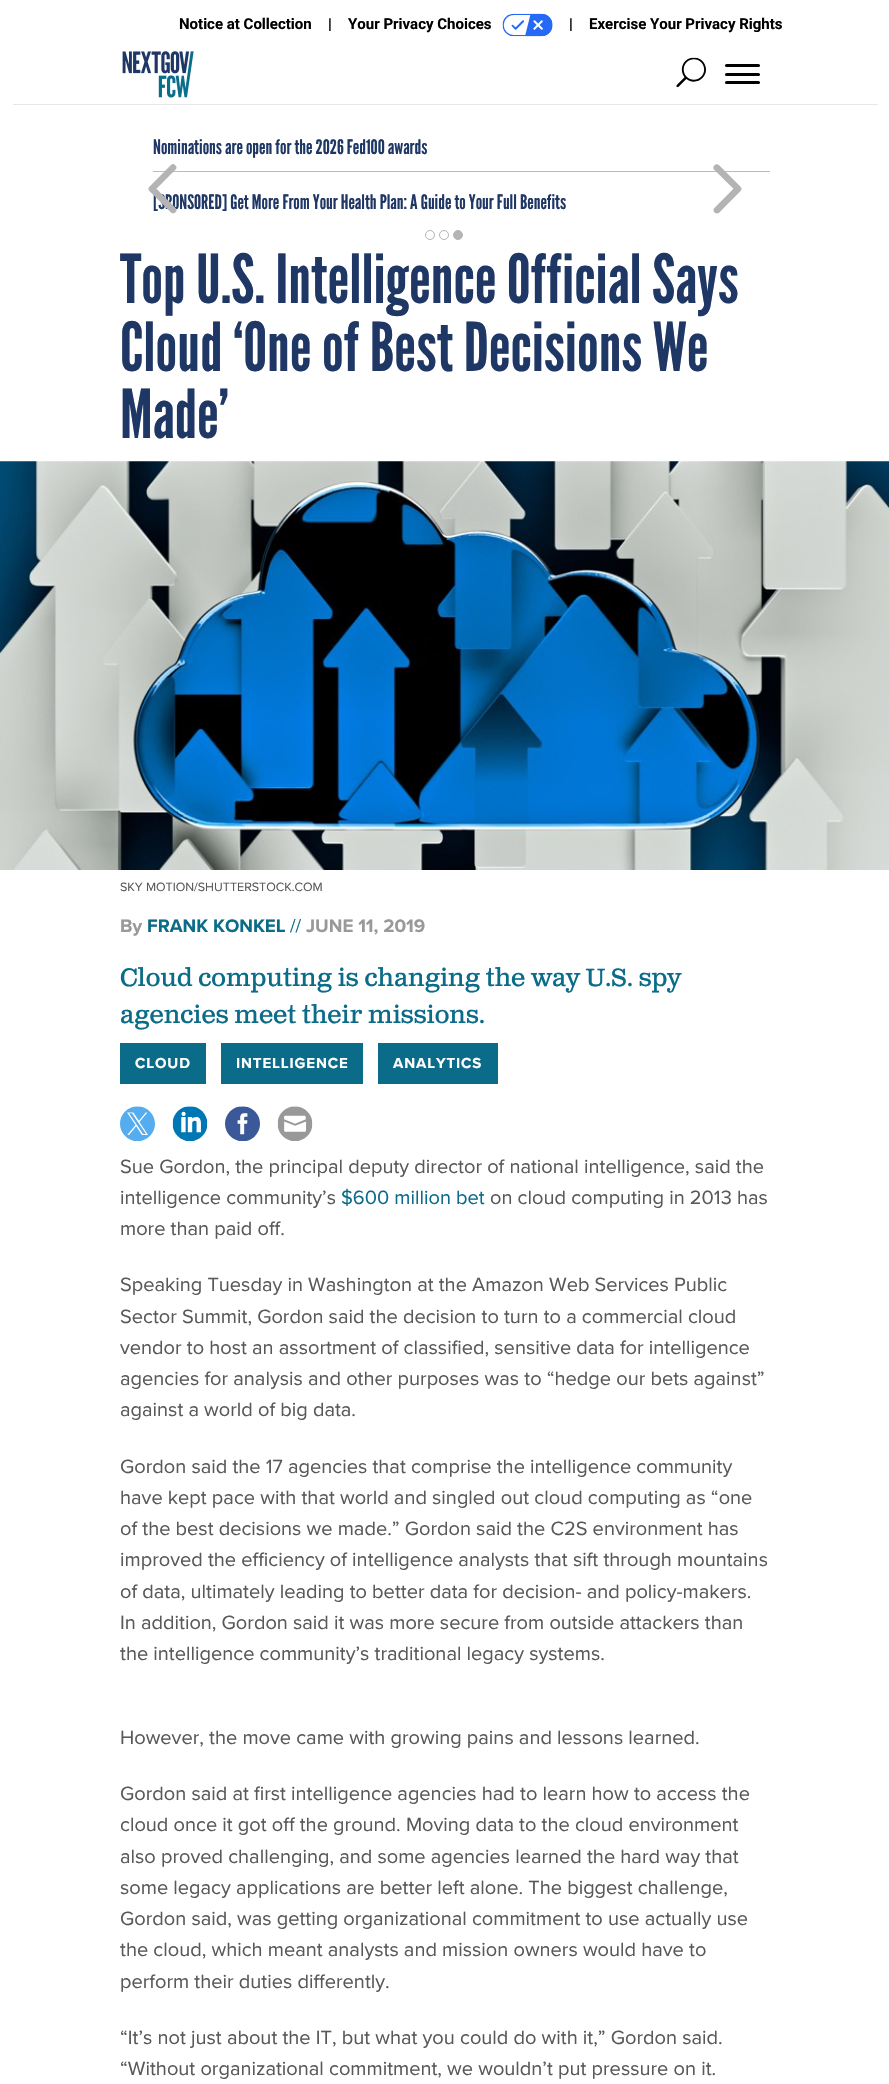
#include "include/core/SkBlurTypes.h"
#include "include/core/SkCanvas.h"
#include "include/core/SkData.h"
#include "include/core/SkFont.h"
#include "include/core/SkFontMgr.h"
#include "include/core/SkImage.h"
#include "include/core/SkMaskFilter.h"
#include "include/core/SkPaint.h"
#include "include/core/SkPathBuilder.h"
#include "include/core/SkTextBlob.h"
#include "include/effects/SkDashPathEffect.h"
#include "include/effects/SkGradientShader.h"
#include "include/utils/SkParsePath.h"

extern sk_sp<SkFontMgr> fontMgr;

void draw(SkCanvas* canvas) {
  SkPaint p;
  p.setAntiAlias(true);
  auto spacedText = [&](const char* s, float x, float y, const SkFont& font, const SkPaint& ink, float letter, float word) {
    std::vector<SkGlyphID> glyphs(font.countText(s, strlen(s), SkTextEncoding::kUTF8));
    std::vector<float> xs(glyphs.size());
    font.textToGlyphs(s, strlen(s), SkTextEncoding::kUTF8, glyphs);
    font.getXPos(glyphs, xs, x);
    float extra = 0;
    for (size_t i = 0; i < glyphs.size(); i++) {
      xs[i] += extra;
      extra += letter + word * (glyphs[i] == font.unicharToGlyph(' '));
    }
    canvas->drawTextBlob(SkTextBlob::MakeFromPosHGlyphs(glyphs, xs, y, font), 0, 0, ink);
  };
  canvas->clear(SK_ColorWHITE);
  canvas->drawImageRect(SkImages::DeferredFromEncodedData(SkData::MakeFromFileName("images/1.png")), SkRect::MakeLTRB(502, 13, 553, 37), SkSamplingOptions());
  p.setColor(SkColorSetRGB(230, 231, 232));
  canvas->drawRect(SkRect::MakeLTRB(13, 104, 878, 105), p);
  canvas->drawImageRect(SkImages::DeferredFromEncodedData(SkData::MakeFromFileName("images/2.png")), SkRect::MakeLTRB(122, 51, 194, 98), SkSamplingOptions());
  canvas->drawImageRect(SkImages::DeferredFromEncodedData(SkData::MakeFromFileName("images/3.png")), SkRect::MakeLTRB(676, 57, 706, 88), SkSamplingOptions());
  p.setColor(SK_ColorBLACK);
  canvas->drawRoundRect(SkRect::MakeLTRB(725, 73, 760, 76), 1.5f, 1.5f, p);
  canvas->drawRoundRect(SkRect::MakeLTRB(725, 64, 760, 67), 1.5f, 1.5f, p);
  canvas->drawRoundRect(SkRect::MakeLTRB(725, 81, 760, 84), 1.5f, 1.5f, p);
  p.setColor(SkColorSetRGB(187, 187, 187));
  canvas->drawRect(SkRect::MakeLTRB(153, 171, 770, 172), p);
  canvas->drawImageRect(SkImages::DeferredFromEncodedData(SkData::MakeFromFileName("images/5.png")), SkRect::MakeLTRB(713, 164, 742, 214), SkSamplingOptions());
  p.setStyle(SkPaint::kStroke_Style);
  p.setStrokeWidth(1);
  p.setColor(SkColorSetRGB(180, 180, 180));
  canvas->drawCircle(430, 235, 4.5f, p);
  canvas->drawCircle(444, 235, 4.5f, p);
  p.setStyle(SkPaint::kFill_Style);
  canvas->drawCircle(458, 235, 4.5f, p);
  p.setStyle(SkPaint::kStroke_Style);
  canvas->drawCircle(458, 235, 4.5f, p);
  canvas->drawImageRect(SkImages::DeferredFromEncodedData(SkData::MakeFromFileName("images/6.png")), SkRect::MakeLTRB(0, 461, 889, 870), SkSamplingOptions());
  p.setStyle(SkPaint::kFill_Style);
  p.setColor(SkColorSetRGB(11, 108, 138));
  canvas->drawRect(SkRect::MakeLTRB(120, 1043, 206, 1084), p);
  canvas->drawRect(SkRect::MakeLTRB(221, 1043, 363, 1084), p);
  canvas->drawRect(SkRect::MakeLTRB(378, 1043, 498, 1084), p);
  canvas->drawImageRect(SkImages::DeferredFromEncodedData(SkData::MakeFromFileName("images/7.png")), SkRect::MakeLTRB(120, 1106, 155, 1141), SkSamplingOptions());
  canvas->drawImageRect(SkImages::DeferredFromEncodedData(SkData::MakeFromFileName("images/8.png")), SkRect::MakeLTRB(172, 1106, 208, 1141), SkSamplingOptions());
  canvas->drawImageRect(SkImages::DeferredFromEncodedData(SkData::MakeFromFileName("images/9.png")), SkRect::MakeLTRB(225, 1106, 260, 1141), SkSamplingOptions());
  canvas->drawImageRect(SkImages::DeferredFromEncodedData(SkData::MakeFromFileName("images/10.png")), SkRect::MakeLTRB(277, 1106, 313, 1141), SkSamplingOptions());
  SkFont font1(fontMgr->matchFamilyStyle("Roboto", SkFontStyle::Bold()), 15);
  font1.setSubpixel(true);
  p.setColor(SK_ColorBLACK);
  canvas->drawString("Notice at Collection", 179, 29, font1, p);
  canvas->drawString("|", 328, 29, font1, p);
  canvas->drawString("Your Privacy Choices", 348, 29, font1, p);
  canvas->drawString("|", 569, 29, font1, p);
  canvas->drawString("Exercise Your Privacy Rights", 589, 29, font1, p);
  SkFont font2(fontMgr->matchFamilyStyle("League Gothic", SkFontStyle::Normal()), 20);
  font2.setSubpixel(true);
  p.setColor(SkColorSetRGB(31, 55, 101));
  canvas->drawString("Nominations are open for the 2026 Fed100 awards", 153, 154, font2, p);
  canvas->drawString("[SPONSORED] Get More From Your Health Plan: A Guide to Your Full Benefits", 153, 209, font2, p);
  canvas->drawImageRect(SkImages::DeferredFromEncodedData(SkData::MakeFromFileName("images/4.png")), SkRect::MakeLTRB(148, 164, 177, 214), SkSamplingOptions());
  SkFont font3(fontMgr->matchFamilyStyle("League Gothic", SkFontStyle::Normal()), 67.5f);
  font3.setSubpixel(true);
  canvas->drawString("Top U.S. Intelligence Official Says", 120, 303, font3, p);
  canvas->drawString("Cloud ‘One of Best Decisions We", 120, 371, font3, p);
  canvas->drawString("Made’", 120, 438, font3, p);
  SkFont font4(fontMgr->matchFamilyStyle("Proxima Nova", SkFontStyle::Normal()), 12.5f);
  font4.setSubpixel(true);
  p.setColor(SkColorSetRGB(88, 89, 91));
  canvas->drawString("SKY MOTION/SHUTTERSTOCK.COM", 120, 891, font4, p);
  SkFont font5(fontMgr->matchFamilyStyle("Proxima Nova", SkFontStyle::Bold()), 18.75f);
  font5.setSubpixel(true);
  p.setColor(SkColorSetRGB(153, 153, 153));
  canvas->drawString("By", 120, 932, font5, p);
  p.setColor(SkColorSetRGB(11, 108, 138));
  canvas->drawString("FRANK KONKEL", 147, 932, font5, p);
  SkFont font6(fontMgr->matchFamilyStyle("Proxima Nova", SkFontStyle::Normal()), 18.75f);
  font6.setSubpixel(true);
  canvas->drawString("//", 290, 932, font6, p);
  p.setColor(SkColorSetRGB(153, 153, 153));
  canvas->drawString("JUNE 11, 2019", 306, 932, font5, p);
  SkFont font7(fontMgr->matchFamilyStyle("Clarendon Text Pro", SkFontStyle::Normal()), 25);
  font7.setSubpixel(true);
  p.setColor(SkColorSetRGB(11, 108, 138));
  canvas->drawString("Cloud computing is changing the way U.S. spy", 120, 986, font7, p);
  canvas->drawString("agencies meet their missions.", 120, 1023, font7, p);
  SkFont font8(fontMgr->matchFamilyStyle("Proxima Nova", SkFontStyle::Bold()), 15);
  font8.setSubpixel(true);
  p.setColor(SK_ColorWHITE);
  spacedText("CLOUD", 135, 1068, font8, p, 0.9f, 0);
  spacedText("INTELLIGENCE", 236, 1068, font8, p, 0.9f, 0);
  spacedText("ANALYTICS", 393, 1068, font8, p, 0.9f, 0);
  SkFont font9(fontMgr->matchFamilyStyle("Proxima Nova", SkFontStyle::Normal()), 20);
  font9.setSubpixel(true);
  p.setColor(SkColorSetRGB(88, 89, 91));
  canvas->drawString("Sue Gordon, the principal deputy director of national intelligence, said the", 120, 1173, font9, p);
  canvas->drawString("intelligence community’s", 120, 1204, font9, p);
  p.setColor(SkColorSetRGB(11, 108, 138));
  canvas->drawString("$600 million bet", 341, 1204, font9, p);
  p.setColor(SkColorSetRGB(88, 89, 91));
  canvas->drawString("on cloud computing in 2013 has", 490, 1204, font9, p);
  canvas->drawString("more than paid off.", 120, 1235, font9, p);
  canvas->drawString("Speaking Tuesday in Washington at the Amazon Web Services Public", 120, 1291, font9, p);
  canvas->drawString("Sector Summit, Gordon said the decision to turn to a commercial cloud", 120, 1323, font9, p);
  canvas->drawString("vendor to host an assortment of classified, sensitive data for intelligence", 120, 1354, font9, p);
  canvas->drawString("agencies for analysis and other purposes was to “hedge our bets against”", 120, 1385, font9, p);
  canvas->drawString("against a world of big data.", 120, 1416, font9, p);
  canvas->drawString("Gordon said the 17 agencies that comprise the intelligence community", 120, 1473, font9, p);
  canvas->drawString("have kept pace with that world and singled out cloud computing as “one", 120, 1504, font9, p);
  canvas->drawString("of the best decisions we made.” Gordon said the C2S environment has", 120, 1535, font9, p);
  canvas->drawString("improved the efficiency of intelligence analysts that sift through mountains", 120, 1566, font9, p);
  canvas->drawString("of data, ultimately leading to better data for decision- and policy-makers.", 120, 1598, font9, p);
  canvas->drawString("In addition, Gordon said it was more secure from outside attackers than", 120, 1629, font9, p);
  canvas->drawString("the intelligence community’s traditional legacy systems.", 120, 1660, font9, p);
  canvas->drawString("However, the move came with growing pains and lessons learned.", 120, 1744, font9, p);
  canvas->drawString("Gordon said at first intelligence agencies had to learn how to access the", 120, 1800, font9, p);
  canvas->drawString("cloud once it got off the ground. Moving data to the cloud environment", 120, 1831, font9, p);
  canvas->drawString("also proved challenging, and some agencies learned the hard way that", 120, 1863, font9, p);
  canvas->drawString("some legacy applications are better left alone. The biggest challenge,", 120, 1894, font9, p);
  canvas->drawString("Gordon said, was getting organizational commitment to use actually use", 120, 1925, font9, p);
  canvas->drawString("the cloud, which meant analysts and mission owners would have to", 120, 1956, font9, p);
  canvas->drawString("perform their duties differently.", 120, 1988, font9, p);
  canvas->drawString("“It’s not just about the IT, but what you could do with it,” Gordon said.", 120, 2044, font9, p);
  canvas->drawString("“Without organizational commitment, we wouldn’t put pressure on it.", 120, 2075, font9, p);
}
